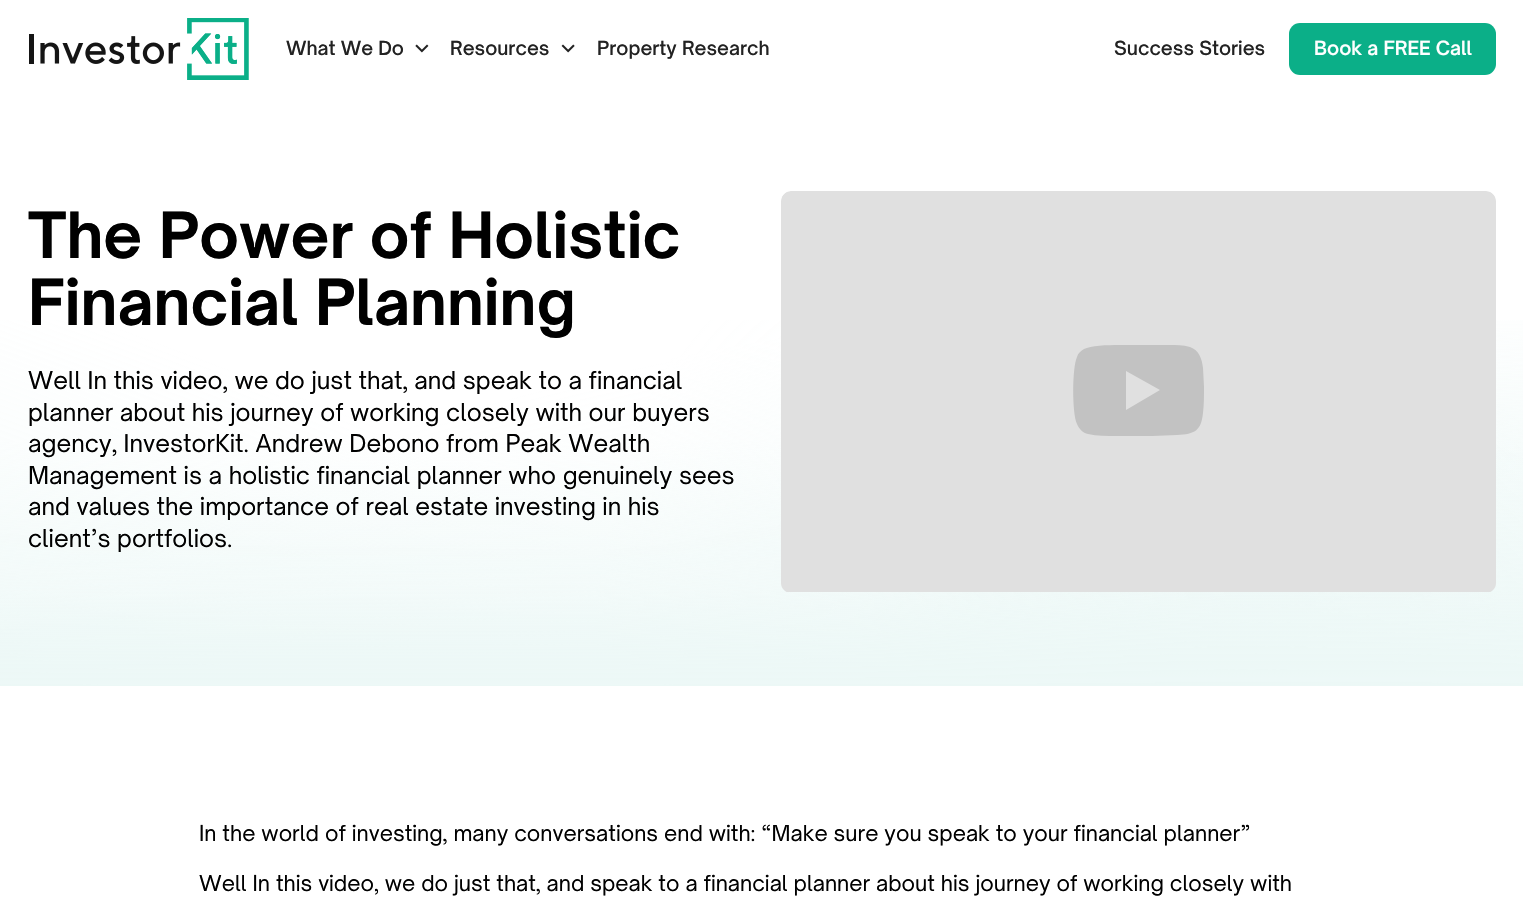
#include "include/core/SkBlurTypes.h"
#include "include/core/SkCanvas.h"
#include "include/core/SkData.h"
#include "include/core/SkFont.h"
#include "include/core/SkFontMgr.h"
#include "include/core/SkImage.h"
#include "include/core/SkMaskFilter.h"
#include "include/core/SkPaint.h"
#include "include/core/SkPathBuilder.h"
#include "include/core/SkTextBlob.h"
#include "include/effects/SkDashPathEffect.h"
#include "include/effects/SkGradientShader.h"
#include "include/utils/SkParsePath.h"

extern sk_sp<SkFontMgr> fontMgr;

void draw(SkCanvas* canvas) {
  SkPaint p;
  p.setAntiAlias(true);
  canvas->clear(SK_ColorWHITE);
  canvas->drawImageRect(SkImages::DeferredFromEncodedData(SkData::MakeFromFileName("images/1.png")), SkRect::MakeLTRB(29, 18, 249, 80), SkSamplingOptions());
  canvas->drawImageRect(SkImages::DeferredFromEncodedData(SkData::MakeFromFileName("images/2.png")), SkRect::MakeLTRB(415, 44, 429, 53), SkSamplingOptions());
  canvas->drawImageRect(SkImages::DeferredFromEncodedData(SkData::MakeFromFileName("images/3.png")), SkRect::MakeLTRB(561, 44, 575, 53), SkSamplingOptions());
  p.setColor(SkColorSetRGB(11, 175, 136));
  canvas->drawRoundRect(SkRect::MakeLTRB(1289, 23, 1496, 75), 11, 11, p);
  canvas->drawImageRect(SkImages::DeferredFromEncodedData(SkData::MakeFromFileName("images/4.png")), SkRect::MakeLTRB(0, 320, 1523, 686), SkSamplingOptions());
  canvas->save();
  canvas->clipPath(SkPathBuilder().moveTo(791, 191).lineTo(1486, 191).cubicTo(1491.5f, 191, 1496, 195.5f, 1496, 201).lineTo(1496, 583).cubicTo(1496, 588.5f, 1491.5f, 593, 1486, 593).lineTo(791, 593).cubicTo(785.5f, 593, 781, 588.5f, 781, 583).lineTo(781, 201).cubicTo(781, 195.5f, 785.5f, 191, 791, 191).close().detach(), true);
  p.setColor(SkColorSetRGB(224, 224, 224));
  canvas->drawPath(SkPathBuilder().moveTo(791, 191).lineTo(1486, 191).cubicTo(1491.5f, 191, 1496, 195.5f, 1496, 201).lineTo(1496, 592).lineTo(781, 592).lineTo(781, 201).cubicTo(781, 195.5f, 785.5f, 191, 791, 191).close().detach(), p);
  canvas->restore();
  p.setColor(SkColorSetRGB(194, 194, 194));
  canvas->drawPath(SkPathBuilder(SkPathFillType::kEvenOdd).moveTo(1126, 410).lineTo(1126, 371).lineTo(1160, 390).close().moveTo(1190, 347).cubicTo(1183, 345, 1176, 345, 1169, 345).lineTo(1132, 345).cubicTo(1122, 345, 1093, 344, 1084, 349).cubicTo(1081, 351, 1078, 353, 1077, 357).cubicTo(1072, 368, 1072, 413, 1077, 424).cubicTo(1079, 429, 1083, 433, 1088, 434).cubicTo(1097, 436, 1107, 436, 1117, 436).lineTo(1152, 436).lineTo(1177, 435).cubicTo(1195, 434, 1201, 431, 1203, 413).cubicTo(1204, 404, 1204, 396, 1204, 387).lineTo(1203, 368).cubicTo(1202, 359, 1199, 350, 1190, 347).close().detach(), p);
  SkFont font1(fontMgr->matchFamilyStyle("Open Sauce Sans", SkFontStyle(500, SkFontStyle::kNormal_Width, SkFontStyle::kUpright_Slant)), 18.75f);
  font1.setSubpixel(true);
  p.setColor(SkColorSetRGB(34, 34, 34));
  canvas->drawString("What We Do", 286, 55, font1, p);
  canvas->drawString("Resources", 450, 55, font1, p);
  canvas->drawString("Property Research", 597, 55, font1, p);
  canvas->drawString("Success Stories", 1114, 55, font1, p);
  SkFont font2(fontMgr->matchFamilyStyle("Open Sauce Sans", SkFontStyle(600, SkFontStyle::kNormal_Width, SkFontStyle::kUpright_Slant)), 18.75f);
  font2.setSubpixel(true);
  p.setColor(SK_ColorWHITE);
  canvas->drawString("Book a FREE Call", 1314, 55, font2, p);
  SkFont font3(fontMgr->matchFamilyStyle("Open Sauce Sans", SkFontStyle::Bold()), 61);
  font3.setSubpixel(true);
  p.setColor(SK_ColorBLACK);
  canvas->drawString("The Power of Holistic", 28, 258, font3, p);
  canvas->drawString("Financial Planning", 28, 325, font3, p);
  SkFont font4(fontMgr->matchFamilyStyle("Open Sauce Sans", SkFontStyle::Normal()), 23.45f);
  font4.setSubpixel(true);
  canvas->drawString("Well In this video, we do just that, and speak to a financial", 28, 389, font4, p);
  canvas->drawString("planner about his journey of working closely with our buyers", 28, 421, font4, p);
  canvas->drawString("agency, InvestorKit. Andrew Debono from Peak Wealth", 28, 452, font4, p);
  canvas->drawString("Management is a holistic financial planner who genuinely sees", 28, 484, font4, p);
  canvas->drawString("and values the importance of real estate investing in his", 28, 515, font4, p);
  canvas->drawString("client’s portfolios.", 28, 547, font4, p);
  SkFont font5(fontMgr->matchFamilyStyle("Open Sauce Sans", SkFontStyle::Normal()), 21.1f);
  font5.setSubpixel(true);
  canvas->drawString("In the world of investing, many conversations end with: “Make sure you speak to your financial planner”", 199, 841, font5, p);
  canvas->drawString("Well In this video, we do just that, and speak to a financial planner about his journey of working closely with", 199, 891, font5, p);
}
